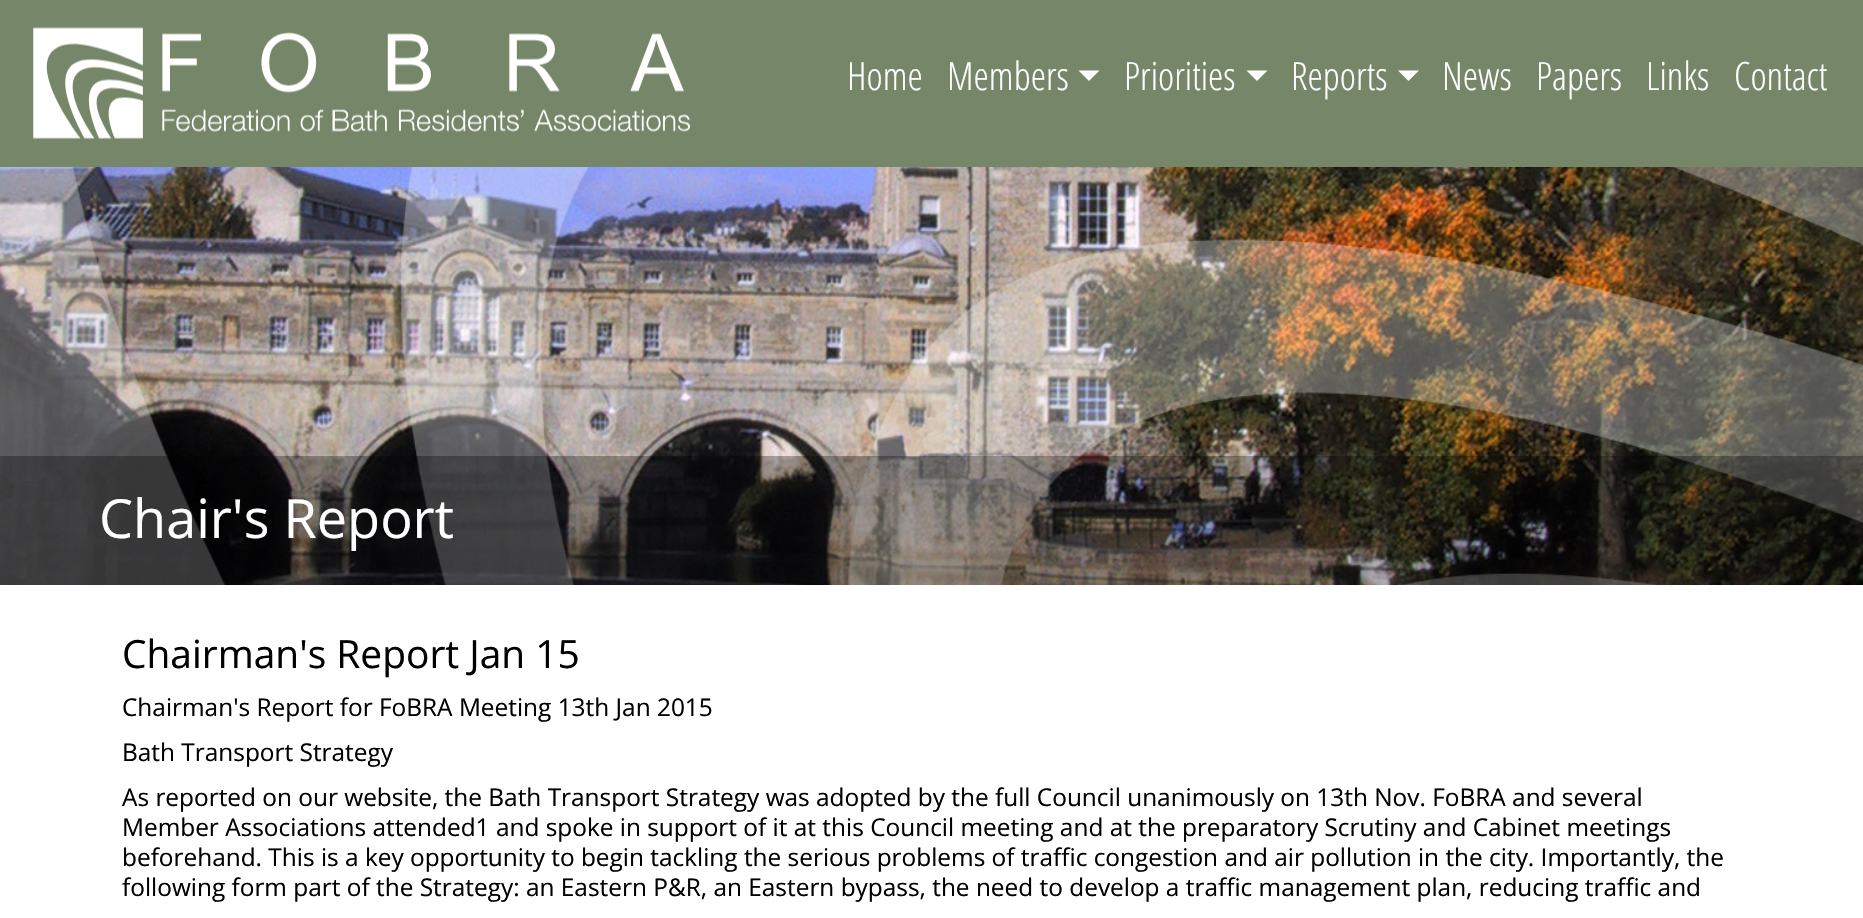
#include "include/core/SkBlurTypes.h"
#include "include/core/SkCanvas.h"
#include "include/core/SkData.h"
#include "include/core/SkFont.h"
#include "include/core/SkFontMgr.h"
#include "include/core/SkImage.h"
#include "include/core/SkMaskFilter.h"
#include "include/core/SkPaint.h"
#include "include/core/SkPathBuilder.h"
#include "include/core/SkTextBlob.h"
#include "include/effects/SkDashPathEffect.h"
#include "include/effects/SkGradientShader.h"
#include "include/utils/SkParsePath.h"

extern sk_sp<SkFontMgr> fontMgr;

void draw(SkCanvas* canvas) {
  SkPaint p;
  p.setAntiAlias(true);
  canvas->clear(SK_ColorWHITE);
  p.setColor(SkColorSetRGB(118, 135, 105));
  canvas->drawRect(SkRect::MakeLTRB(0, 0, 1863, 167), p);
  canvas->drawImageRect(SkImages::DeferredFromEncodedData(SkData::MakeFromFileName("images/1.png")), SkRect::MakeLTRB(33, 27, 690, 139), SkSamplingOptions());
  p.setColor(SK_ColorWHITE);
  canvas->drawPath(SkPathBuilder().moveTo(1078.5f, 70.5f).lineTo(1099.5f, 70.5f).lineTo(1089, 81).close().detach(), p);
  canvas->drawPath(SkPathBuilder().moveTo(1246.5f, 70.5f).lineTo(1267.5f, 70.5f).lineTo(1257, 81).close().detach(), p);
  canvas->drawPath(SkPathBuilder().moveTo(1398, 70.5f).lineTo(1419, 70.5f).lineTo(1408.5f, 81).close().detach(), p);
  canvas->drawImageRect(SkImages::DeferredFromEncodedData(SkData::MakeFromFileName("images/2.png")), SkRect::MakeLTRB(0, 167, 1863, 585), SkSamplingOptions());
  p.setColor(SkColorSetARGB(77, 0, 0, 0));
  canvas->drawRect(SkRect::MakeLTRB(0, 456, 1863, 585), p);
  SkFont font1(fontMgr->matchFamilyStyle("Open Sans Condensed", SkFontStyle(300, SkFontStyle::kNormal_Width, SkFontStyle::kUpright_Slant)), 39);
  font1.setSubpixel(true);
  p.setColor(SK_ColorWHITE);
  canvas->drawString("Home", 847, 90, font1, p);
  canvas->drawString("Members", 947, 90, font1, p);
  canvas->drawString("Priorities", 1124, 90, font1, p);
  canvas->drawString("Reports", 1291, 90, font1, p);
  canvas->drawString("News", 1442, 90, font1, p);
  canvas->drawString("Papers", 1536, 90, font1, p);
  canvas->drawString("Links", 1646, 90, font1, p);
  canvas->drawString("Contact", 1734, 90, font1, p);
  SkFont font2(fontMgr->matchFamilyStyle("Open Sans", SkFontStyle::Normal()), 54);
  font2.setSubpixel(true);
  canvas->drawString("Chair's Report", 99, 538, font2, p);
  SkFont font3(fontMgr->matchFamilyStyle("Open Sans", SkFontStyle::Normal()), 38.9f);
  font3.setSubpixel(true);
  p.setColor(SK_ColorBLACK);
  canvas->drawString("Chairman's Report Jan 15", 122, 668, font3, p);
  SkFont font4(fontMgr->matchFamilyStyle("Open Sans", SkFontStyle::Normal()), 24.4f);
  font4.setSubpixel(true);
  canvas->drawString("Chairman's Report for FoBRA Meeting 13th Jan 2015", 122, 716, font4, p);
  canvas->drawString("Bath Transport Strategy", 122, 761, font4, p);
  canvas->drawString("As reported on our website, the Bath Transport Strategy was adopted by the full Council unanimously on 13th Nov. FoBRA and several", 122, 806, font4, p);
  canvas->drawString("Member Associations attended1 and spoke in support of it at this Council meeting and at the preparatory Scrutiny and Cabinet meetings", 122, 836, font4, p);
  canvas->drawString("beforehand. This is a key opportunity to begin tackling the serious problems of traffic congestion and air pollution in the city. Importantly, the", 122, 866, font4, p);
  canvas->drawString("following form part of the Strategy: an Eastern P&R, an Eastern bypass, the need to develop a traffic management plan, reducing traffic and", 122, 896, font4, p);
}
